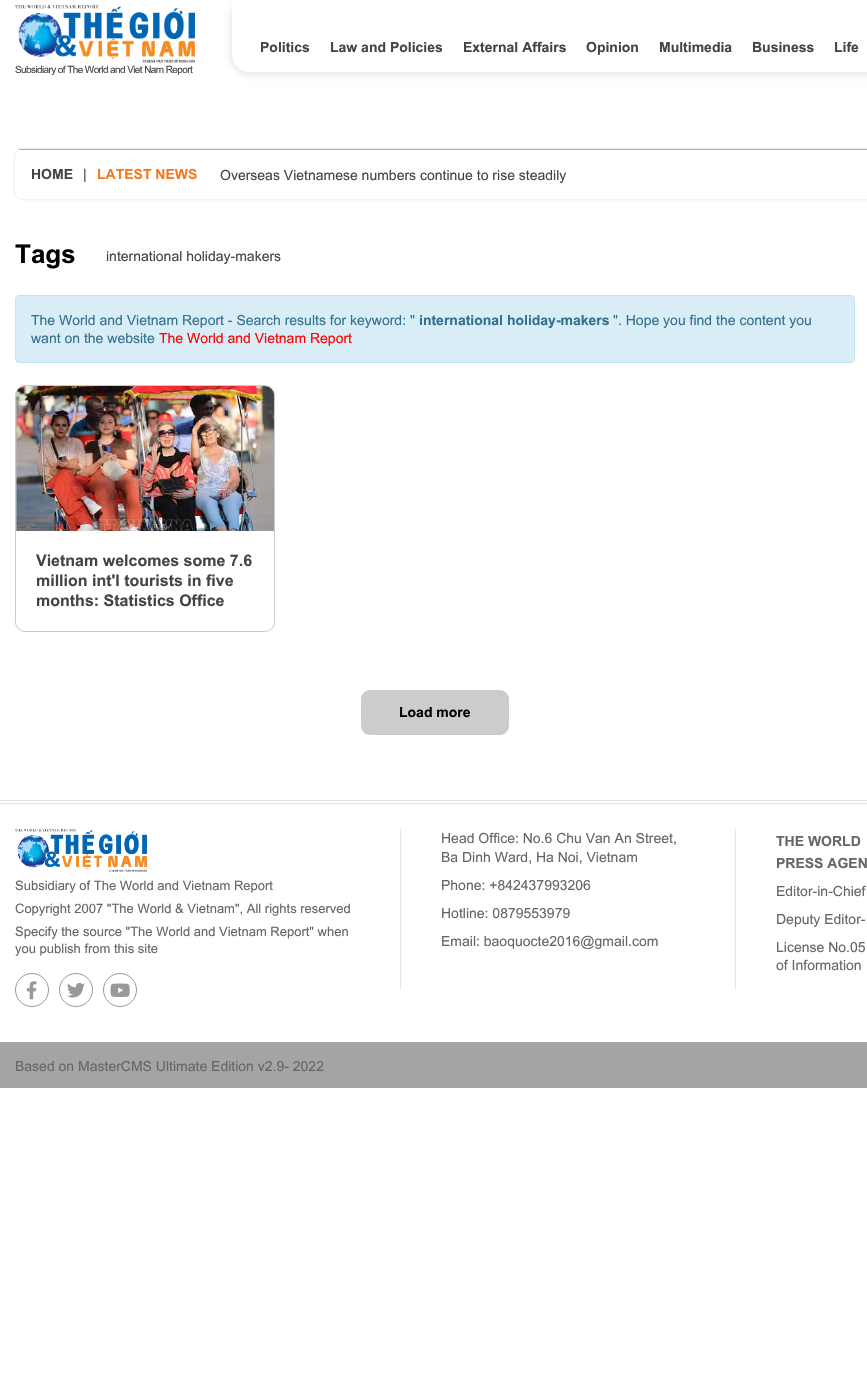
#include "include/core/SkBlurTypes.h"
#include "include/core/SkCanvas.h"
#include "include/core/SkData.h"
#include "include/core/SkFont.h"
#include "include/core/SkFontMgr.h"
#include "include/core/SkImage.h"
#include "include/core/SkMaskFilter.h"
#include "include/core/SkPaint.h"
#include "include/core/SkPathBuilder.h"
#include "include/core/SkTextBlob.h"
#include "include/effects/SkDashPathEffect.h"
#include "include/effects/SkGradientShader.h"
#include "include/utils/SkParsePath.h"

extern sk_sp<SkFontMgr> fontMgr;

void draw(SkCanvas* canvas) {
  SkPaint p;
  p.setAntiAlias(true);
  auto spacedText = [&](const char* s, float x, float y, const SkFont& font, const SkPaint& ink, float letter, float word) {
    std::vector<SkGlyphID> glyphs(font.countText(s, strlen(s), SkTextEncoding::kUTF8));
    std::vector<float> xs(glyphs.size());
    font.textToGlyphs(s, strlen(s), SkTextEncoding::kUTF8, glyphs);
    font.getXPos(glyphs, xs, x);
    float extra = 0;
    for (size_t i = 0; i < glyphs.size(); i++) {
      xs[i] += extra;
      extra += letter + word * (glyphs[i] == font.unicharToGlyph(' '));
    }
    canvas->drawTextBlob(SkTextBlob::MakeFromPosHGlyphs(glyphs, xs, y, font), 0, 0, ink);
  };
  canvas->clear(SK_ColorWHITE);
  canvas->save();
  canvas->clipPath(SkPathBuilder(SkPathFillType::kEvenOdd).moveTo(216, 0).lineTo(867, 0).lineTo(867, 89).lineTo(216, 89).close().moveTo(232, 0).lineTo(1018, 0).lineTo(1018, 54).cubicTo(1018, 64, 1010, 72, 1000, 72).lineTo(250, 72).cubicTo(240, 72, 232, 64, 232, 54).close().detach(), true);
  p.setColor(SkColorSetRGB(219, 219, 219));
  p.setMaskFilter(SkMaskFilter::MakeBlur(kNormal_SkBlurStyle, 5));
  canvas->drawRoundRect(SkRect::MakeLTRB(232, 1, 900, 73), 18, 18, p);
  p.setMaskFilter(nullptr);
  canvas->restore();
  canvas->drawImageRect(SkImages::DeferredFromEncodedData(SkData::MakeFromFileName("images/1.png")), SkRect::MakeLTRB(15, 5, 195, 63), SkSamplingOptions());
  canvas->save();
  canvas->clipPath(SkPathBuilder(SkPathFillType::kEvenOdd).moveTo(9, 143).lineTo(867, 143).lineTo(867, 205).lineTo(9, 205).close().moveTo(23, 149).lineTo(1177, 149).cubicTo(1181.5f, 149, 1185, 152.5f, 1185, 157).lineTo(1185, 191).cubicTo(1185, 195.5f, 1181.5f, 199, 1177, 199).lineTo(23, 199).cubicTo(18.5f, 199, 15, 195.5f, 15, 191).lineTo(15, 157).cubicTo(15, 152.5f, 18.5f, 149, 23, 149).close().detach(), true);
  p.setMaskFilter(SkMaskFilter::MakeBlur(kNormal_SkBlurStyle, 1.5f));
  canvas->drawRoundRect(SkRect::MakeLTRB(15, 149, 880, 199), 8, 8, p);
  p.setMaskFilter(nullptr);
  canvas->restore();
  p.setColor(SkColorSetRGB(247, 155, 88));
  canvas->drawRect(SkRect::MakeLTRB(19, 149, 867, 150), p);
  p.setColor(SkColorSetRGB(217, 237, 247));
  canvas->drawRoundRect(SkRect::MakeLTRB(15.5f, 295.5f, 854.5f, 362.5f), 3.5f, 3.5f, p);
  p.setStyle(SkPaint::kStroke_Style);
  p.setStrokeWidth(1);
  p.setColor(SkColorSetRGB(188, 232, 241));
  canvas->drawRoundRect(SkRect::MakeLTRB(15.5f, 295.5f, 854.5f, 362.5f), 3.5f, 3.5f, p);
  p.setColor(SkColorSetRGB(203, 203, 203));
  canvas->drawRoundRect(SkRect::MakeLTRB(15.5f, 385.5f, 274.5f, 631.5f), 9.5f, 9.5f, p);
  canvas->drawImageRect(SkImages::DeferredFromEncodedData(SkData::MakeFromFileName("images/2.png")), SkRect::MakeLTRB(16, 386, 274, 395), SkSamplingOptions());
  canvas->drawImageRect(SkImages::DeferredFromEncodedData(SkData::MakeFromFileName("images/3.png")), SkRect::MakeLTRB(16, 386, 274, 531), SkSamplingOptions());
  p.setStyle(SkPaint::kFill_Style);
  p.setColor(SkColorSetRGB(204, 204, 204));
  canvas->drawRoundRect(SkRect::MakeLTRB(361, 690, 509, 735), 9, 9, p);
  p.setColor(SkColorSetRGB(225, 225, 225));
  canvas->drawRect(SkRect::MakeLTRB(0, 800, 867, 801), p);
  canvas->drawRect(SkRect::MakeLTRB(0, 803, 867, 804), p);
  canvas->drawImageRect(SkImages::DeferredFromEncodedData(SkData::MakeFromFileName("images/4.png")), SkRect::MakeLTRB(15, 829, 147, 872), SkSamplingOptions());
  p.setStyle(SkPaint::kStroke_Style);
  p.setColor(SkColorSetRGB(153, 153, 153));
  canvas->drawCircle(32, 990, 16.5f, p);
  canvas->drawImageRect(SkImages::DeferredFromEncodedData(SkData::MakeFromFileName("images/5.png")), SkRect::MakeLTRB(26, 981, 37, 1000), SkSamplingOptions());
  canvas->drawCircle(76, 990, 16.5f, p);
  canvas->drawImageRect(SkImages::DeferredFromEncodedData(SkData::MakeFromFileName("images/6.png")), SkRect::MakeLTRB(67, 983, 85, 998), SkSamplingOptions());
  canvas->drawCircle(120, 990, 16.5f, p);
  canvas->drawImageRect(SkImages::DeferredFromEncodedData(SkData::MakeFromFileName("images/7.png")), SkRect::MakeLTRB(110, 983, 130, 997), SkSamplingOptions());
  p.setStyle(SkPaint::kFill_Style);
  p.setColor(SkColorSetRGB(229, 229, 229));
  canvas->drawRect(SkRect::MakeLTRB(735, 829, 736, 990), p);
  canvas->drawRect(SkRect::MakeLTRB(400, 829, 401, 990), p);
  p.setColor(SkColorSetRGB(164, 164, 164));
  canvas->drawRect(SkRect::MakeLTRB(0, 1042, 867, 1088), p);
  SkFont font1(fontMgr->matchFamilyStyle("Arial", SkFontStyle::Bold()), 14);
  font1.setSubpixel(true);
  p.setColor(SkColorSetRGB(68, 68, 68));
  canvas->drawString("Politics", 260, 52, font1, p);
  canvas->drawString("Law and Policies", 330, 52, font1, p);
  canvas->drawString("External Affairs", 463, 52, font1, p);
  canvas->drawString("Opinion", 586, 52, font1, p);
  canvas->drawString("Multimedia", 659, 52, font1, p);
  canvas->drawString("Business", 752, 52, font1, p);
  canvas->drawString("Life", 834, 52, font1, p);
  SkFont font2(fontMgr->matchFamilyStyle("Arial", SkFontStyle::Normal()), 10);
  font2.setSubpixel(true);
  spacedText("Subsidiary of The World and Viet Nam Report", 15, 73, font2, p, -0.6f, 0);
  canvas->drawString("HOME", 31, 179, font1, p);
  SkFont font3(fontMgr->matchFamilyStyle("Arial", SkFontStyle::Normal()), 14);
  font3.setSubpixel(true);
  canvas->drawString("|", 83, 179, font3, p);
  p.setColor(SkColorSetRGB(244, 121, 32));
  canvas->drawString("LATEST NEWS", 97, 179, font1, p);
  p.setColor(SkColorSetRGB(68, 68, 68));
  canvas->drawString("Overseas Vietnamese numbers continue to rise steadily", 220, 180, font3, p);
  SkFont font4(fontMgr->matchFamilyStyle("Arial", SkFontStyle::Bold()), 26);
  font4.setSubpixel(true);
  p.setColor(SK_ColorBLACK);
  canvas->drawString("Tags", 15, 263, font4, p);
  p.setColor(SkColorSetRGB(68, 68, 68));
  canvas->drawString("international holiday-makers", 106, 261, font3, p);
  p.setColor(SkColorSetRGB(49, 112, 143));
  canvas->drawString("The World and Vietnam Report - Search results for keyword: \"", 31, 325, font3, p);
  canvas->drawString("international holiday-makers", 419, 325, font1, p);
  canvas->drawString("\". Hope you find the content you", 613, 325, font3, p);
  canvas->drawString("want on the website", 31, 343, font3, p);
  p.setColor(SkColorSetRGB(255, 0, 0));
  canvas->drawString("The World and Vietnam Report", 159, 343, font3, p);
  SkFont font5(fontMgr->matchFamilyStyle("Arial", SkFontStyle::Bold()), 16);
  font5.setSubpixel(true);
  p.setColor(SkColorSetRGB(68, 68, 68));
  canvas->drawString("Vietnam welcomes some 7.6", 36, 566, font5, p);
  canvas->drawString("million int'l tourists in five", 36, 586, font5, p);
  canvas->drawString("months: Statistics Office", 36, 606, font5, p);
  p.setColor(SK_ColorBLACK);
  canvas->drawString("Load more", 399, 717, font1, p);
  SkFont font6(fontMgr->matchFamilyStyle("Arial", SkFontStyle::Normal()), 13);
  font6.setSubpixel(true);
  p.setColor(SkColorSetRGB(102, 102, 102));
  canvas->drawString("Subsidiary of The World and Vietnam Report", 15, 890, font6, p);
  canvas->drawString("Copyright 2007 \"The World & Vietnam\", All rights reserved", 15, 913, font6, p);
  canvas->drawString("Specify the source \"The World and Vietnam Report\" when", 15, 936, font6, p);
  canvas->drawString("you publish from this site", 15, 953, font6, p);
  canvas->drawString("Head Office: No.6 Chu Van An Street,", 441, 843, font3, p);
  canvas->drawString("Ba Dinh Ward, Ha Noi, Vietnam", 441, 862, font3, p);
  canvas->drawString("Phone: +842437993206", 441, 890, font3, p);
  canvas->drawString("Hotline: 0879553979", 441, 918, font3, p);
  canvas->drawString("Email: baoquocte2016@gmail.com", 441, 946, font3, p);
  canvas->drawString("THE WORLD", 776, 846, font1, p);
  canvas->drawString("PRESS AGEN", 776, 868, font1, p);
  canvas->drawString("Editor-in-Chief", 776, 896, font3, p);
  canvas->drawString("Deputy Editor-", 776, 924, font3, p);
  canvas->drawString("License No.05", 776, 952, font3, p);
  canvas->drawString("of Information", 776, 970, font3, p);
  canvas->drawString("Based on MasterCMS Ultimate Edition v2.9- 2022", 15, 1071, font3, p);
}
